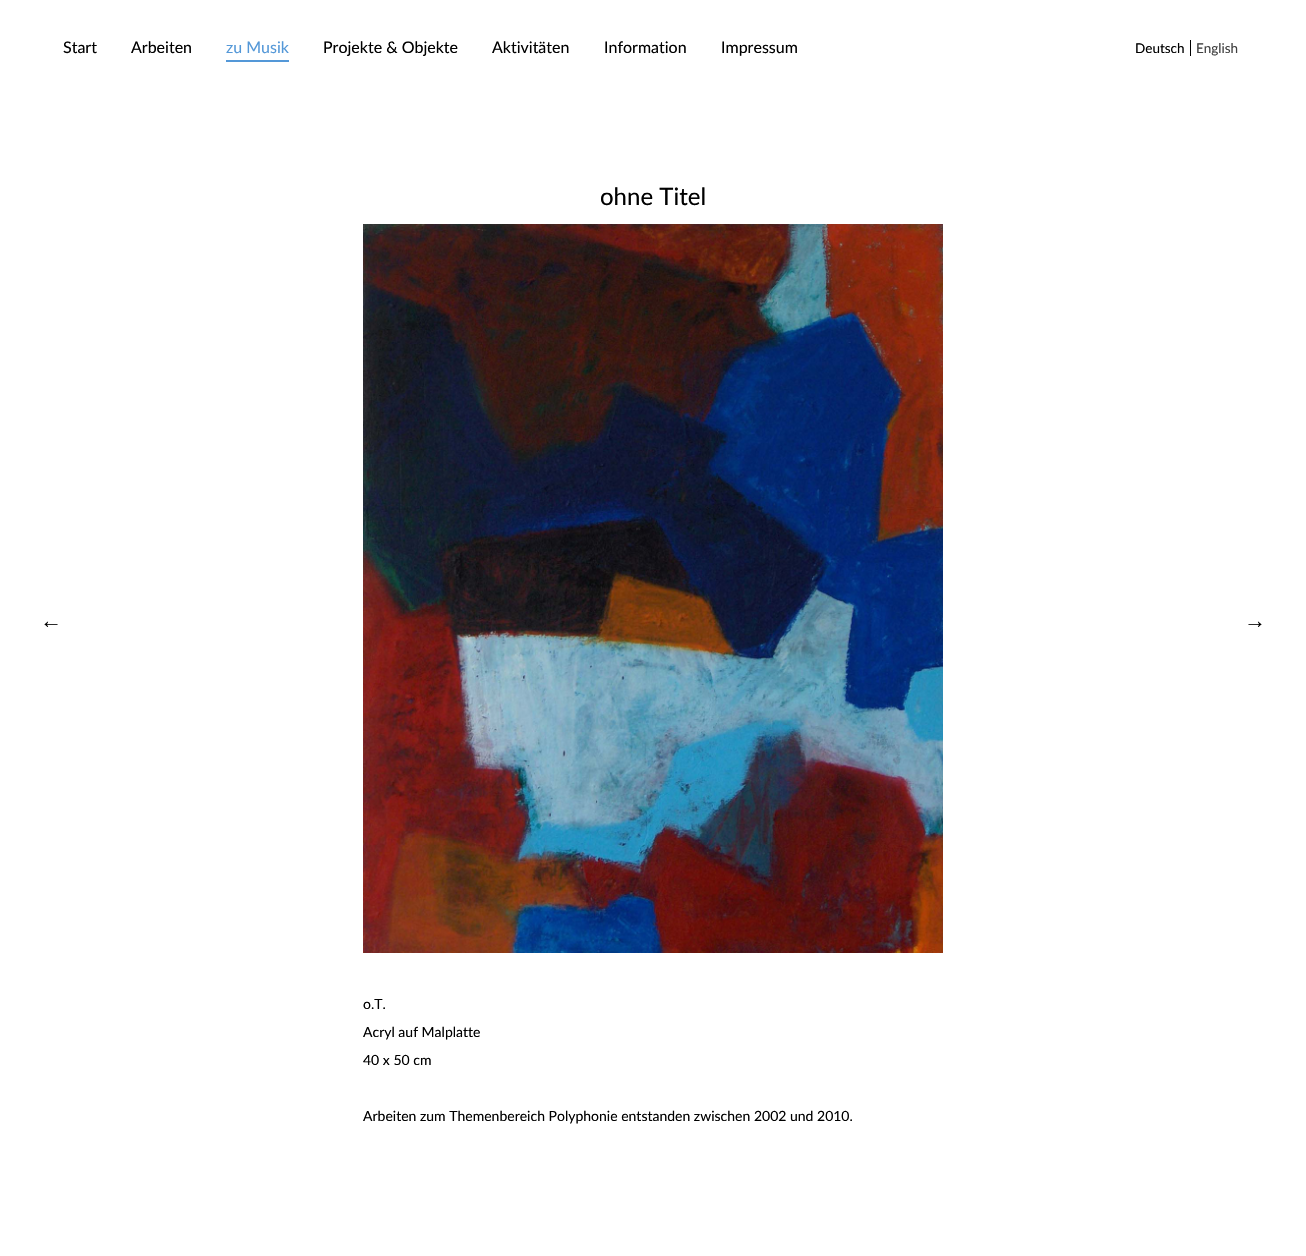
#include "include/core/SkBlurTypes.h"
#include "include/core/SkCanvas.h"
#include "include/core/SkData.h"
#include "include/core/SkFont.h"
#include "include/core/SkFontMgr.h"
#include "include/core/SkImage.h"
#include "include/core/SkMaskFilter.h"
#include "include/core/SkPaint.h"
#include "include/core/SkPathBuilder.h"
#include "include/core/SkTextBlob.h"
#include "include/effects/SkDashPathEffect.h"
#include "include/effects/SkGradientShader.h"
#include "include/utils/SkParsePath.h"

extern sk_sp<SkFontMgr> fontMgr;

void draw(SkCanvas* canvas) {
  SkPaint p;
  p.setAntiAlias(true);
  canvas->clear(SK_ColorWHITE);
  p.setColor(SkColorSetRGB(84, 152, 216));
  canvas->drawRect(SkRect::MakeLTRB(226, 60, 289, 62), p);
  p.setColor(SK_ColorBLACK);
  canvas->drawRect(SkRect::MakeLTRB(1190, 40, 1191, 56), p);
  canvas->drawImageRect(SkImages::DeferredFromEncodedData(SkData::MakeFromFileName("images/1.png")), SkRect::MakeLTRB(363, 224, 943, 953), SkSamplingOptions());
  SkFont font1(fontMgr->matchFamilyStyle("Lato", SkFontStyle::Normal()), 16);
  font1.setSubpixel(true);
  canvas->drawString("Start", 63, 53, font1, p);
  canvas->drawString("Arbeiten", 131, 53, font1, p);
  p.setColor(SkColorSetRGB(84, 152, 216));
  canvas->drawString("zu Musik", 226, 53, font1, p);
  p.setColor(SK_ColorBLACK);
  canvas->drawString("Projekte & Objekte", 323, 53, font1, p);
  canvas->drawString("Aktivitäten", 492, 53, font1, p);
  canvas->drawString("Information", 604, 53, font1, p);
  canvas->drawString("Impressum", 721, 53, font1, p);
  SkFont font2(fontMgr->matchFamilyStyle("Lato", SkFontStyle::Normal()), 13.5f);
  font2.setSubpixel(true);
  canvas->drawString("Deutsch", 1135, 53, font2, p);
  p.setColor(SkColorSetRGB(64, 64, 64));
  canvas->drawString("English", 1196, 53, font2, p);
  SkFont font3(fontMgr->matchFamilyStyle("Lato", SkFontStyle::Normal()), 24);
  font3.setSubpixel(true);
  p.setColor(SK_ColorBLACK);
  canvas->drawString("ohne Titel", 600, 205, font3, p);
  SkFont font4(fontMgr->matchFamilyStyle("Lato", SkFontStyle::Normal()), 14);
  font4.setSubpixel(true);
  canvas->drawString("o.T.", 363, 1009, font4, p);
  canvas->drawString("Acryl auf Malplatte", 363, 1037, font4, p);
  canvas->drawString("40 x 50 cm", 363, 1065, font4, p);
  canvas->drawString("Arbeiten zum Themenbereich Polyphonie entstanden zwischen 2002 und 2010.", 363, 1121, font4, p);
  SkFont font5(fontMgr->matchFamilyStyle("Liberation Sans", SkFontStyle::Normal()), 22);
  font5.setSubpixel(true);
  canvas->drawString("←", 40, 628, font5, p);
  canvas->drawString("→", 1244, 628, font5, p);
}
